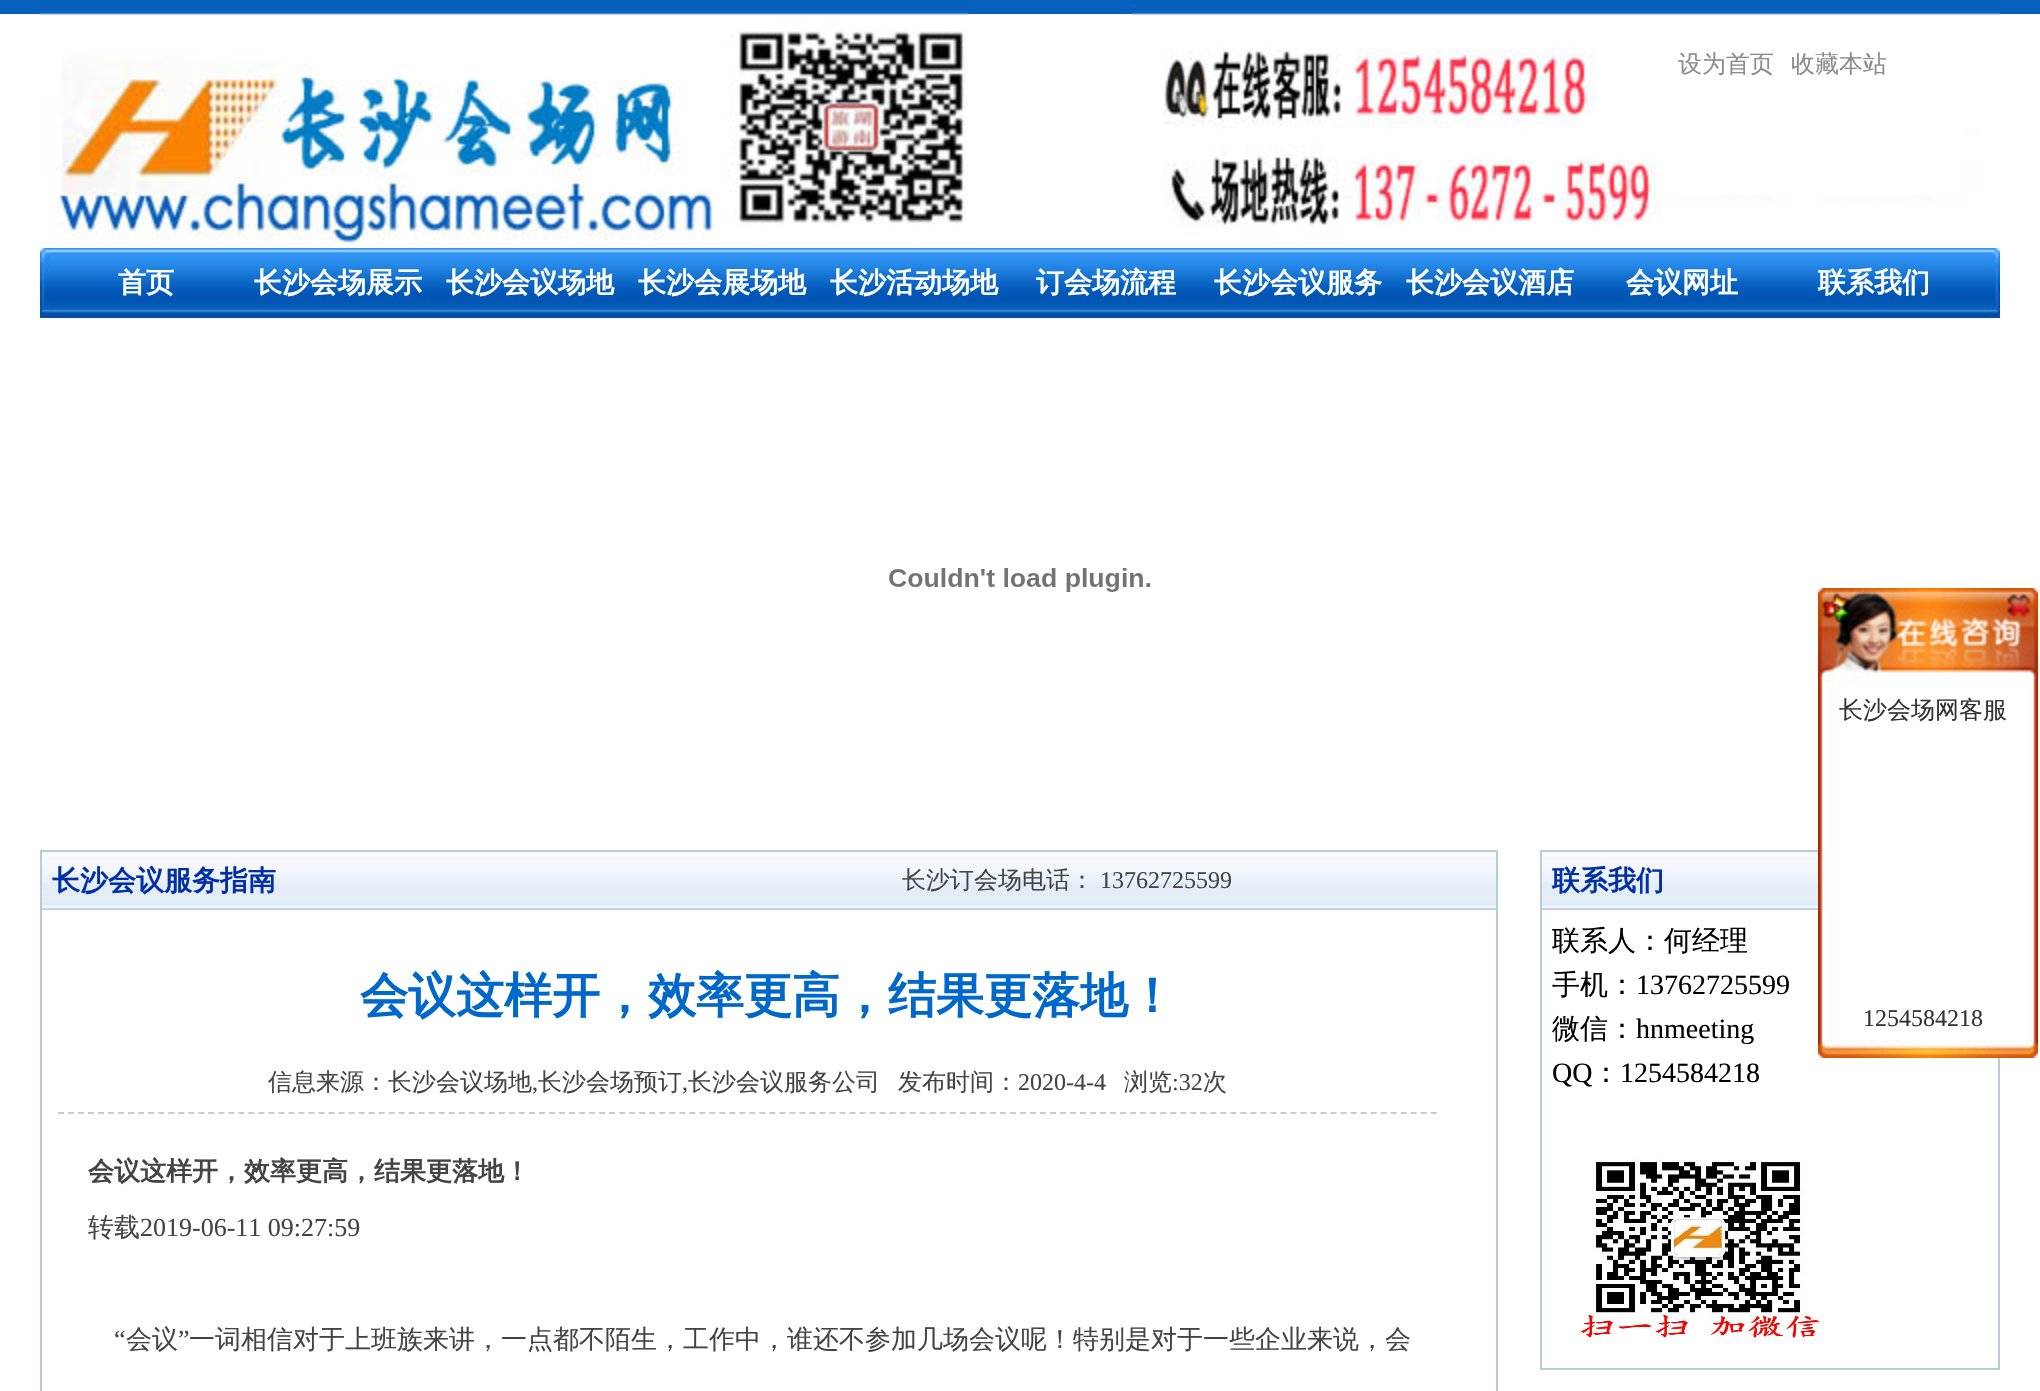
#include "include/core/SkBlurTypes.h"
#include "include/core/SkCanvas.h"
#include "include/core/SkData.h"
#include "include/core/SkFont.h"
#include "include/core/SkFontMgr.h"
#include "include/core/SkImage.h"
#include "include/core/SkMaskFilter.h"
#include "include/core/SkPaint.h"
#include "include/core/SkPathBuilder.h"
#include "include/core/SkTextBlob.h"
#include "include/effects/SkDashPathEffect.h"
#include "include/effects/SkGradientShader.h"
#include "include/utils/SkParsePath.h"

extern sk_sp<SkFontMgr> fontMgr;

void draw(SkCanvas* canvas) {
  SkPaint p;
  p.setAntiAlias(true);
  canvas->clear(SK_ColorWHITE);
  p.setColor(SkColorSetRGB(7, 96, 190));
  canvas->drawRect(SkRect::MakeLTRB(0, 0, 2040, 14), p);
  canvas->drawImageRect(SkImages::DeferredFromEncodedData(SkData::MakeFromFileName("images/1.png")), SkRect::MakeLTRB(40, 0, 968, 248), SkSamplingOptions());
  canvas->drawImageRect(SkImages::DeferredFromEncodedData(SkData::MakeFromFileName("images/2.png")), SkRect::MakeLTRB(1132, 0, 2000, 248), SkSamplingOptions());
  canvas->drawImageRect(SkImages::DeferredFromEncodedData(SkData::MakeFromFileName("images/3.png")), SkRect::MakeLTRB(50, 248, 1990, 318), SkSamplingOptions());
  canvas->drawImageRect(SkImages::DeferredFromEncodedData(SkData::MakeFromFileName("images/4.png")), SkRect::MakeLTRB(40, 248, 50, 318), SkSamplingOptions());
  canvas->drawImageRect(SkImages::DeferredFromEncodedData(SkData::MakeFromFileName("images/5.png")), SkRect::MakeLTRB(1990, 248, 2000, 318), SkSamplingOptions());
  canvas->drawImageRect(SkImages::DeferredFromEncodedData(SkData::MakeFromFileName("images/6.png")), SkRect::MakeLTRB(889, 568, 1151, 592), SkSamplingOptions());
  p.setStyle(SkPaint::kStroke_Style);
  p.setStrokeWidth(2);
  p.setColor(SkColorSetRGB(182, 205, 211));
  canvas->drawRect(SkRect::MakeLTRB(41, 851, 1497, 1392), p);
  canvas->drawImageRect(SkImages::DeferredFromEncodedData(SkData::MakeFromFileName("images/7.png")), SkRect::MakeLTRB(42, 852, 1496, 910), SkSamplingOptions());
  p.setColor(SkColorSetRGB(204, 204, 204));
  p.setPathEffect(SkDashPathEffect::Make({{6, 4.02f}}, 0));
  canvas->drawPath(SkPathBuilder().moveTo(58, 1113).lineTo(1438, 1113).detach(), p);
  p.setPathEffect(nullptr);
  p.setColor(SkColorSetRGB(182, 205, 211));
  canvas->drawRect(SkRect::MakeLTRB(1541, 851, 1999, 1369), p);
  canvas->drawImageRect(SkImages::DeferredFromEncodedData(SkData::MakeFromFileName("images/8.png")), SkRect::MakeLTRB(1542, 852, 1818, 910), SkSamplingOptions());
  canvas->drawImageRect(SkImages::DeferredFromEncodedData(SkData::MakeFromFileName("images/9.png")), SkRect::MakeLTRB(1575, 1159, 1821, 1341), SkSamplingOptions());
  canvas->drawImageRect(SkImages::DeferredFromEncodedData(SkData::MakeFromFileName("images/10.png")), SkRect::MakeLTRB(1818, 588, 2038, 688), SkSamplingOptions());
  canvas->drawImageRect(SkImages::DeferredFromEncodedData(SkData::MakeFromFileName("images/11.png")), SkRect::MakeLTRB(1818, 688, 2038, 1040), SkSamplingOptions());
  canvas->drawImageRect(SkImages::DeferredFromEncodedData(SkData::MakeFromFileName("images/12.png")), SkRect::MakeLTRB(1818, 1040, 2038, 1058), SkSamplingOptions());
  SkFont font1(fontMgr->matchFamilyStyle("WenQuanYi Zen Hei", SkFontStyle(500, SkFontStyle::kNormal_Width, SkFontStyle::kUpright_Slant)), 24);
  font1.setSubpixel(true);
  p.setStyle(SkPaint::kFill_Style);
  p.setColor(SkColorSetRGB(139, 139, 139));
  canvas->drawString("设为首页", 1678, 72, font1, p);
  canvas->drawString("收藏本站", 1791, 72, font1, p);
  SkFont font2(fontMgr->matchFamilyStyle("WenQuanYi Zen Hei", SkFontStyle::Bold()), 28);
  font2.setSubpixel(true);
  p.setColor(SK_ColorWHITE);
  canvas->drawString("首页", 118, 292, font2, p);
  canvas->drawString("长沙会场展示", 254, 292, font2, p);
  canvas->drawString("长沙会议场地", 446, 292, font2, p);
  canvas->drawString("长沙会展场地", 638, 292, font2, p);
  canvas->drawString("长沙活动场地", 830, 292, font2, p);
  canvas->drawString("订会场流程", 1036, 292, font2, p);
  canvas->drawString("长沙会议服务", 1214, 292, font2, p);
  canvas->drawString("长沙会议酒店", 1406, 292, font2, p);
  canvas->drawString("会议网址", 1626, 292, font2, p);
  canvas->drawString("联系我们", 1818, 292, font2, p);
  p.setColor(SkColorSetRGB(0, 47, 166));
  canvas->drawString("长沙会议服务指南", 52, 890, font2, p);
  p.setColor(SkColorSetRGB(68, 68, 68));
  canvas->drawString("长沙订会场电话：", 902, 888, font1, p);
  SkFont font3(fontMgr->matchFamilyStyle("Liberation Serif", SkFontStyle::Normal()), 24);
  font3.setSubpixel(true);
  canvas->drawString("13762725599", 1100, 888, font3, p);
  SkFont font4(fontMgr->matchFamilyStyle("WenQuanYi Zen Hei", SkFontStyle::Bold()), 48);
  font4.setSubpixel(true);
  p.setColor(SkColorSetRGB(0, 104, 202));
  canvas->drawString("会议这样开，效率更高，结果更落地！", 360, 1012, font4, p);
  p.setColor(SkColorSetRGB(68, 68, 68));
  canvas->drawString("信息来源：长沙会议场地", 268, 1090, font1, p);
  canvas->drawString(",", 532, 1090, font3, p);
  canvas->drawString("长沙会场预订", 538, 1090, font1, p);
  canvas->drawString(",", 682, 1090, font3, p);
  canvas->drawString("长沙会议服务公司", 688, 1090, font1, p);
  canvas->drawString("发布时间：", 898, 1090, font1, p);
  canvas->drawString("2020-4-4", 1018, 1090, font3, p);
  canvas->drawString("浏览", 1124, 1090, font1, p);
  canvas->drawString(":32", 1172, 1090, font3, p);
  canvas->drawString("次", 1203, 1090, font1, p);
  SkFont font5(fontMgr->matchFamilyStyle("WenQuanYi Zen Hei", SkFontStyle::Bold()), 26);
  font5.setSubpixel(true);
  canvas->drawString("会议这样开，效率更高，结果更落地！", 88, 1180, font5, p);
  SkFont font6(fontMgr->matchFamilyStyle("WenQuanYi Zen Hei", SkFontStyle(500, SkFontStyle::kNormal_Width, SkFontStyle::kUpright_Slant)), 26);
  font6.setSubpixel(true);
  canvas->drawString("转载", 88, 1236, font6, p);
  SkFont font7(fontMgr->matchFamilyStyle("Liberation Serif", SkFontStyle::Normal()), 26);
  font7.setSubpixel(true);
  canvas->drawString("2019-06-11 09:27:59", 140, 1236, font7, p);
  canvas->drawString("“", 114, 1348, font7, p);
  canvas->drawString("会议", 126, 1348, font6, p);
  canvas->drawString("”", 178, 1348, font7, p);
  canvas->drawString("一词相信对于上班族来讲，一点都不陌生，工作中，谁还不参加几场会议呢！特别是对于一些企业来说，会", 189, 1348, font6, p);
  p.setColor(SkColorSetRGB(0, 47, 166));
  canvas->drawString("联系我们", 1552, 890, font2, p);
  SkFont font8(fontMgr->matchFamilyStyle("WenQuanYi Zen Hei", SkFontStyle(500, SkFontStyle::kNormal_Width, SkFontStyle::kUpright_Slant)), 28);
  font8.setSubpixel(true);
  p.setColor(SK_ColorBLACK);
  canvas->drawString("联系人：何经理", 1552, 950, font8, p);
  canvas->drawString("手机：", 1552, 994, font8, p);
  SkFont font9(fontMgr->matchFamilyStyle("Liberation Serif", SkFontStyle::Normal()), 28);
  font9.setSubpixel(true);
  canvas->drawString("13762725599", 1636, 994, font9, p);
  canvas->drawString("微信：", 1552, 1038, font8, p);
  canvas->drawString("hnmeeting", 1636, 1038, font9, p);
  canvas->drawString("QQ", 1552, 1082, font9, p);
  canvas->drawString("：", 1592, 1082, font8, p);
  canvas->drawString("1254584218", 1620, 1082, font9, p);
  p.setColor(SkColorSetRGB(51, 51, 51));
  canvas->drawString("长沙会场网客服", 1839, 718, font1, p);
  canvas->drawString("1254584218", 1863, 1026, font3, p);
}
